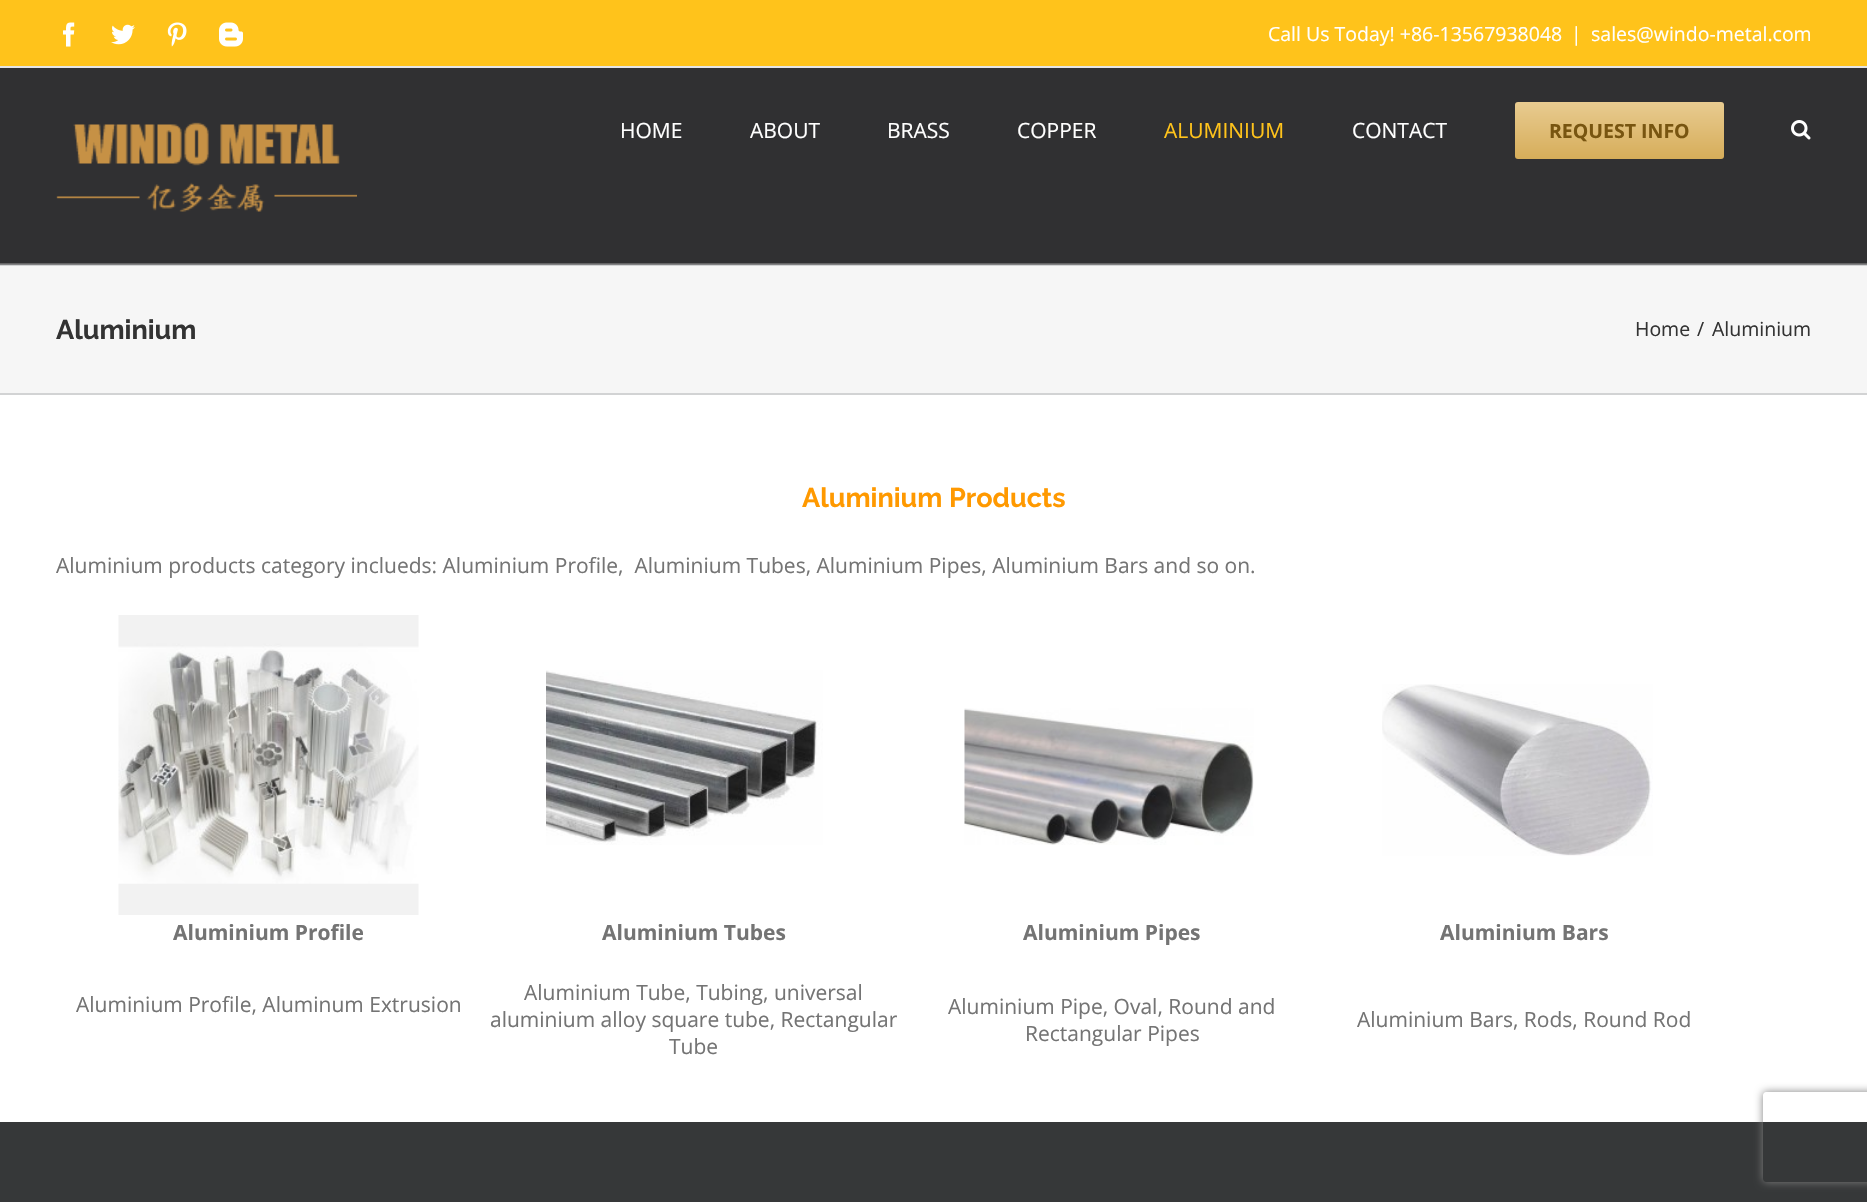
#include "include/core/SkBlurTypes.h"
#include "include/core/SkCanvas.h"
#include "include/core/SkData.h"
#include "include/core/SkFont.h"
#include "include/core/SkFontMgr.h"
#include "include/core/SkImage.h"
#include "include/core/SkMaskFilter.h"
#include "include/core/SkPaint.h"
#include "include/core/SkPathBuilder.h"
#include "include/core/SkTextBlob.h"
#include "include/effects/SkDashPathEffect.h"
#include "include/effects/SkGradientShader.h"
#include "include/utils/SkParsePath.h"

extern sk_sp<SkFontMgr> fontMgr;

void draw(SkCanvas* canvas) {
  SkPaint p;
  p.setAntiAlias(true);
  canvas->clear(SK_ColorWHITE);
  p.setColor(SkColorSetRGB(255, 195, 27));
  canvas->drawRect(SkRect::MakeLTRB(0, 0, 1867, 66), p);
  p.setColor(SkColorSetRGB(229, 229, 229));
  canvas->drawRect(SkRect::MakeLTRB(0, 66, 1867, 68), p);
  canvas->drawImageRect(SkImages::DeferredFromEncodedData(SkData::MakeFromFileName("images/1.png")), SkRect::MakeLTRB(63, 22, 75, 47), SkSamplingOptions());
  canvas->drawImageRect(SkImages::DeferredFromEncodedData(SkData::MakeFromFileName("images/2.png")), SkRect::MakeLTRB(111, 24, 135, 45), SkSamplingOptions());
  canvas->drawImageRect(SkImages::DeferredFromEncodedData(SkData::MakeFromFileName("images/3.png")), SkRect::MakeLTRB(167, 22, 187, 47), SkSamplingOptions());
  canvas->drawImageRect(SkImages::DeferredFromEncodedData(SkData::MakeFromFileName("images/4.png")), SkRect::MakeLTRB(219, 22, 243, 47), SkSamplingOptions());
  p.setColor(SkColorSetRGB(210, 211, 212));
  canvas->drawRect(SkRect::MakeLTRB(0, 264, 1867, 266), p);
  canvas->drawImageRect(SkImages::DeferredFromEncodedData(SkData::MakeFromFileName("images/5.png")), SkRect::MakeLTRB(0, 68, 1867, 265), SkSamplingOptions());
  canvas->drawImageRect(SkImages::DeferredFromEncodedData(SkData::MakeFromFileName("images/6.png")), SkRect::MakeLTRB(56, 122, 357, 212), SkSamplingOptions());
  {
    const SkColor colors[] = {SkColorSetRGB(214, 173, 90), SkColorSetRGB(232, 203, 144)};
    const float stops[] = {0, 1};
    const SkPoint ends[] = {{1619, 159}, {1619, 102}};
    p.setShader(SkGradientShader::MakeLinear(ends, colors, stops, 2, SkTileMode::kClamp));
    p.setAlpha(255);
  }
  canvas->drawRoundRect(SkRect::MakeLTRB(1515, 102, 1724, 159), 3, 3, p);
  canvas->drawImageRect(SkImages::DeferredFromEncodedData(SkData::MakeFromFileName("images/7.png")), SkRect::MakeLTRB(1791, 120, 1811, 140), SkSamplingOptions());
  p.setShader(nullptr);
  p.setColor(SkColorSetRGB(246, 246, 246));
  canvas->drawRect(SkRect::MakeLTRB(0, 266, 1867, 393), p);
  p.setColor(SkColorSetRGB(210, 211, 212));
  canvas->drawRect(SkRect::MakeLTRB(0, 393, 1867, 395), p);
  canvas->drawImageRect(SkImages::DeferredFromEncodedData(SkData::MakeFromFileName("images/8.png")), SkRect::MakeLTRB(118, 615, 419, 915), SkSamplingOptions());
  canvas->drawImageRect(SkImages::DeferredFromEncodedData(SkData::MakeFromFileName("images/9.png")), SkRect::MakeLTRB(546, 670, 823, 845), SkSamplingOptions());
  canvas->drawImageRect(SkImages::DeferredFromEncodedData(SkData::MakeFromFileName("images/10.png")), SkRect::MakeLTRB(964, 708, 1254, 845), SkSamplingOptions());
  canvas->drawImageRect(SkImages::DeferredFromEncodedData(SkData::MakeFromFileName("images/11.png")), SkRect::MakeLTRB(1382, 684, 1653, 856), SkSamplingOptions());
  p.setColor(SkColorSetRGB(54, 56, 57));
  canvas->drawRect(SkRect::MakeLTRB(0, 1122, 1867, 1202), p);
  canvas->save();
  canvas->clipPath(SkPathBuilder(SkPathFillType::kEvenOdd).moveTo(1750, 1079).lineTo(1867, 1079).lineTo(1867, 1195).lineTo(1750, 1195).close().moveTo(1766, 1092).lineTo(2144, 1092).cubicTo(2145.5f, 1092, 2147, 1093.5f, 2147, 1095).lineTo(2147, 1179).cubicTo(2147, 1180.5f, 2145.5f, 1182, 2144, 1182).lineTo(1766, 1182).cubicTo(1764.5f, 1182, 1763, 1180.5f, 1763, 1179).lineTo(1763, 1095).cubicTo(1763, 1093.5f, 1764.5f, 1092, 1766, 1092).close().detach(), true);
  p.setColor(SkColorSetRGB(128, 128, 128));
  p.setMaskFilter(SkMaskFilter::MakeBlur(kNormal_SkBlurStyle, 4));
  canvas->drawRoundRect(SkRect::MakeLTRB(1763, 1092, 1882, 1182), 3, 3, p);
  p.setMaskFilter(nullptr);
  canvas->restore();
  SkFont font1(fontMgr->matchFamilyStyle("Open Sans", SkFontStyle::Normal()), 19.5f);
  font1.setSubpixel(true);
  p.setColor(SK_ColorWHITE);
  canvas->drawString("Call Us Today! +86-13567938048", 1268, 41, font1, p);
  canvas->drawString("|", 1571, 41, font1, p);
  canvas->drawString("sales@windo-metal.com", 1591, 41, font1, p);
  SkFont font2(fontMgr->matchFamilyStyle("Open Sans", SkFontStyle::Normal()), 21);
  font2.setSubpixel(true);
  canvas->drawString("HOME", 620, 138, font2, p);
  canvas->drawString("ABOUT", 750, 138, font2, p);
  canvas->drawString("BRASS", 887, 138, font2, p);
  canvas->drawString("COPPER", 1017, 138, font2, p);
  p.setColor(SkColorSetRGB(255, 195, 27));
  canvas->drawString("ALUMINIUM", 1164, 138, font2, p);
  p.setColor(SK_ColorWHITE);
  canvas->drawString("CONTACT", 1352, 138, font2, p);
  SkFont font3(fontMgr->matchFamilyStyle("Open Sans", SkFontStyle::Bold()), 19.5f);
  font3.setSubpixel(true);
  p.setColor(SkColorSetRGB(120, 85, 16));
  canvas->drawString("REQUEST INFO", 1549, 138, font3, p);
  SkFont font4(fontMgr->matchFamilyStyle("Raleway", SkFontStyle::Bold()), 27);
  font4.setSubpixel(true);
  p.setColor(SkColorSetRGB(51, 51, 51));
  canvas->drawString("Aluminium", 56, 339, font4, p);
  canvas->drawString("Home", 1635, 336, font1, p);
  canvas->drawString("/", 1697, 336, font1, p);
  canvas->drawString("Aluminium", 1712, 336, font1, p);
  p.setColor(SkColorSetRGB(255, 153, 0));
  canvas->drawString("Aluminium Products", 802, 507, font4, p);
  p.setColor(SkColorSetRGB(116, 116, 116));
  canvas->drawString("Aluminium products category inclueds: Aluminium Profile,  Aluminium Tubes, Aluminium Pipes, Aluminium Bars and so on.", 56, 573, font2, p);
  SkFont font5(fontMgr->matchFamilyStyle("Open Sans", SkFontStyle::Bold()), 21);
  font5.setSubpixel(true);
  canvas->drawString("Aluminium Profile", 173, 940, font5, p);
  canvas->drawString("Aluminium Tubes", 602, 940, font5, p);
  canvas->drawString("Aluminium Pipes", 1023, 940, font5, p);
  canvas->drawString("Aluminium Bars", 1440, 940, font5, p);
  canvas->drawString("Aluminium Profile, Aluminum Extrusion", 76, 1012, font2, p);
  canvas->drawString("Aluminium Tube, Tubing, universal", 524, 1000, font2, p);
  canvas->drawString("aluminium alloy square tube, Rectangular", 490, 1027, font2, p);
  canvas->drawString("Tube", 669, 1054, font2, p);
  canvas->drawString("Aluminium Pipe, Oval, Round and", 948, 1014, font2, p);
  canvas->drawString("Rectangular Pipes", 1025, 1041, font2, p);
  canvas->drawString("Aluminium Bars, Rods, Round Rod", 1357, 1027, font2, p);
}
